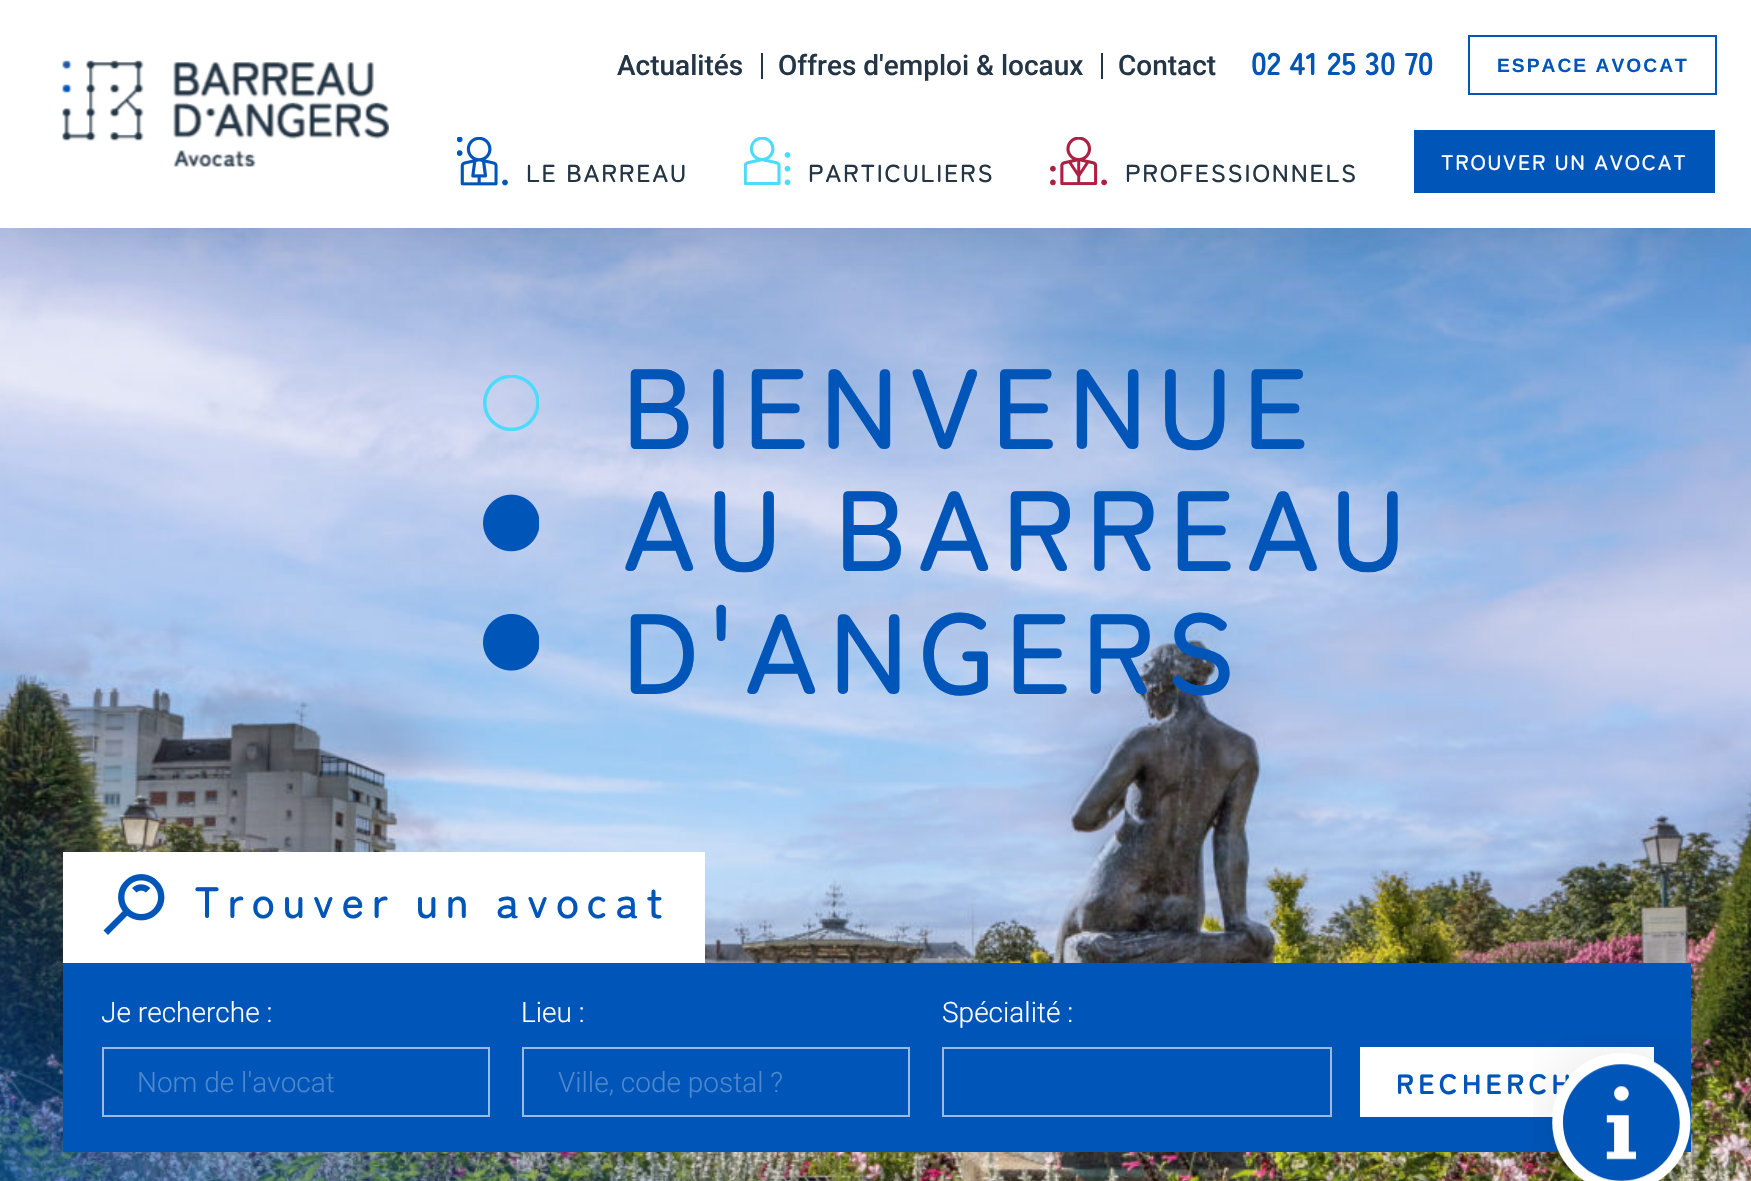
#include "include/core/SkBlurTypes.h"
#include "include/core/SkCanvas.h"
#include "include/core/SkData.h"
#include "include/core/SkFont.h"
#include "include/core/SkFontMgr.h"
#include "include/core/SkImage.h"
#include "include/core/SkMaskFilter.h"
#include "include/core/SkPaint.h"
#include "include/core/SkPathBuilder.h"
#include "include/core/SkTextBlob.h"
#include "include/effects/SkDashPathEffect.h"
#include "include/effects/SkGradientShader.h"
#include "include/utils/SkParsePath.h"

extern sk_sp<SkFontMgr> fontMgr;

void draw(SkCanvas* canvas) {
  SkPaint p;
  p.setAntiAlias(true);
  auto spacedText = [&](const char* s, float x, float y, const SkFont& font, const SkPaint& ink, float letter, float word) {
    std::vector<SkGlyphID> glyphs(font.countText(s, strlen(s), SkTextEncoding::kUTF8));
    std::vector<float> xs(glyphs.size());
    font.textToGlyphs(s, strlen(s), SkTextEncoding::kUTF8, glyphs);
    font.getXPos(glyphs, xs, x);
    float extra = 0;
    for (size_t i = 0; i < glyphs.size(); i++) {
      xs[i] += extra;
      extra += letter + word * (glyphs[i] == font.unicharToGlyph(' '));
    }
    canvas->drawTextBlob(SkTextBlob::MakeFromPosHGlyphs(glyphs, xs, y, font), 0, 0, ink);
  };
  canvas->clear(SK_ColorWHITE);
  canvas->drawImageRect(SkImages::DeferredFromEncodedData(SkData::MakeFromFileName("images/5.png")), SkRect::MakeLTRB(0, 228, 1751, 1181), SkSamplingOptions());
  p.setColor(SkColorSetARGB(26, 0, 0, 0));
  p.setMaskFilter(SkMaskFilter::MakeBlur(kNormal_SkBlurStyle, 30.5f));
  canvas->drawRect(SkRect::MakeLTRB(0, 0, 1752, 228), p);
  p.setMaskFilter(nullptr);
  p.setColor(SK_ColorWHITE);
  canvas->drawRect(SkRect::MakeLTRB(0, 0, 1751, 228), p);
  canvas->drawImageRect(SkImages::DeferredFromEncodedData(SkData::MakeFromFileName("images/1.png")), SkRect::MakeLTRB(62, 60, 389, 167), SkSamplingOptions());
  p.setColor(SkColorSetRGB(36, 54, 69));
  canvas->drawRect(SkRect::MakeLTRB(761, 53, 763, 79), p);
  canvas->drawRect(SkRect::MakeLTRB(1101, 53, 1103, 79), p);
  p.setStyle(SkPaint::kStroke_Style);
  p.setStrokeWidth(2);
  p.setColor(SkColorSetRGB(0, 85, 184));
  canvas->drawRect(SkRect::MakeLTRB(1469, 36, 1716, 94), p);
  canvas->drawImageRect(SkImages::DeferredFromEncodedData(SkData::MakeFromFileName("images/2.png")), SkRect::MakeLTRB(457, 137, 508, 186), SkSamplingOptions());
  canvas->drawImageRect(SkImages::DeferredFromEncodedData(SkData::MakeFromFileName("images/3.png")), SkRect::MakeLTRB(744, 137, 791, 186), SkSamplingOptions());
  canvas->drawImageRect(SkImages::DeferredFromEncodedData(SkData::MakeFromFileName("images/4.png")), SkRect::MakeLTRB(1050, 137, 1107, 186), SkSamplingOptions());
  p.setStyle(SkPaint::kFill_Style);
  canvas->drawRect(SkRect::MakeLTRB(1414, 130, 1715, 193), p);
  canvas->drawImageRect(SkImages::DeferredFromEncodedData(SkData::MakeFromFileName("images/6.png")), SkRect::MakeLTRB(483, 375, 539, 671), SkSamplingOptions());
  p.setColor(SK_ColorWHITE);
  canvas->drawRect(SkRect::MakeLTRB(63, 852, 705, 963), p);
  canvas->drawImageRect(SkImages::DeferredFromEncodedData(SkData::MakeFromFileName("images/7.png")), SkRect::MakeLTRB(103, 874, 165, 935), SkSamplingOptions());
  p.setColor(SkColorSetRGB(0, 85, 184));
  canvas->drawRect(SkRect::MakeLTRB(63, 963, 1691, 1152), p);
  p.setStyle(SkPaint::kStroke_Style);
  p.setColor(SkColorSetRGB(153, 187, 227));
  canvas->drawRect(SkRect::MakeLTRB(103, 1048, 489, 1116), p);
  canvas->drawRect(SkRect::MakeLTRB(523, 1048, 909, 1116), p);
  canvas->drawRect(SkRect::MakeLTRB(943, 1048, 1331, 1116), p);
  p.setStyle(SkPaint::kFill_Style);
  p.setColor(SK_ColorWHITE);
  canvas->drawRect(SkRect::MakeLTRB(1360, 1047, 1654, 1117), p);
  SkFont font1(fontMgr->matchFamilyStyle("Roboto", SkFontStyle(500, SkFontStyle::kNormal_Width, SkFontStyle::kUpright_Slant)), 28);
  font1.setSubpixel(true);
  p.setColor(SkColorSetRGB(36, 54, 69));
  canvas->drawString("Actualités", 617, 75, font1, p);
  canvas->drawString("Offres d'emploi & locaux", 778, 75, font1, p);
  canvas->drawString("Contact", 1118, 75, font1, p);
  SkFont font2(fontMgr->matchFamilyStyle("Zen Maru Gothic", SkFontStyle::Bold()), 31.5f);
  font2.setSubpixel(true);
  p.setColor(SkColorSetRGB(0, 85, 184));
  canvas->drawString("02 41 25 30 70", 1251, 75, font2, p);
  SkFont font3(fontMgr->matchFamilyStyle("Liberation Sans", SkFontStyle::Bold()), 19.25f);
  font3.setSubpixel(true);
  spacedText("ESPACE AVOCAT", 1497, 72, font3, p, 2, 0);
  SkFont font4(fontMgr->matchFamilyStyle("Zen Maru Gothic", SkFontStyle(500, SkFontStyle::kNormal_Width, SkFontStyle::kUpright_Slant)), 24.5f);
  font4.setSubpixel(true);
  p.setColor(SkColorSetRGB(36, 54, 69));
  spacedText("LE BARREAU", 526, 182, font4, p, 1.75f, 0);
  spacedText("PARTICULIERS", 808, 182, font4, p, 1.75f, 0);
  spacedText("PROFESSIONNELS", 1125, 182, font4, p, 1.75f, 0);
  SkFont font5(fontMgr->matchFamilyStyle("Zen Maru Gothic", SkFontStyle(500, SkFontStyle::kNormal_Width, SkFontStyle::kUpright_Slant)), 21);
  font5.setSubpixel(true);
  p.setColor(SK_ColorWHITE);
  spacedText("TROUVER UN AVOCAT", 1441, 170, font5, p, 1.75f, 0);
  SkFont font6(fontMgr->matchFamilyStyle("Zen Maru Gothic", SkFontStyle(500, SkFontStyle::kNormal_Width, SkFontStyle::kUpright_Slant)), 113.75f);
  font6.setSubpixel(true);
  p.setColor(SkColorSetRGB(0, 85, 184));
  spacedText("BIENVENUE", 622, 449, font6, p, 10.5f, 0);
  spacedText("AU BARREAU", 622, 571, font6, p, 10.5f, 0);
  spacedText("D'ANGERS", 622, 694, font6, p, 10.5f, 0);
  SkFont font7(fontMgr->matchFamilyStyle("Zen Maru Gothic", SkFontStyle(500, SkFontStyle::kNormal_Width, SkFontStyle::kUpright_Slant)), 43.75f);
  font7.setSubpixel(true);
  spacedText("Trouver un avocat", 194, 918, font7, p, 7.4f, 0);
  SkFont font8(fontMgr->matchFamilyStyle("Roboto", SkFontStyle(300, SkFontStyle::kNormal_Width, SkFontStyle::kUpright_Slant)), 28);
  font8.setSubpixel(true);
  p.setColor(SK_ColorWHITE);
  canvas->drawString("Je recherche :", 101, 1022, font8, p);
  p.setColor(SkColorSetRGB(77, 136, 205));
  canvas->drawString("Nom de l'avocat", 137, 1092, font8, p);
  p.setColor(SK_ColorWHITE);
  canvas->drawString("Lieu :", 521, 1022, font8, p);
  p.setColor(SkColorSetRGB(77, 136, 205));
  canvas->drawString("Ville, code postal ?", 558, 1092, font8, p);
  p.setColor(SK_ColorWHITE);
  canvas->drawString("Spécialité :", 942, 1022, font8, p);
  SkFont font9(fontMgr->matchFamilyStyle("Zen Maru Gothic", SkFontStyle::Bold()), 28);
  font9.setSubpixel(true);
  p.setColor(SkColorSetRGB(0, 85, 184));
  spacedText("RECHERCH", 1396, 1094, font9, p, 4.25f, 0);
  canvas->drawImageRect(SkImages::DeferredFromEncodedData(SkData::MakeFromFileName("images/8.png")), SkRect::MakeLTRB(1533, 1035, 1708, 1181), SkSamplingOptions());
}
